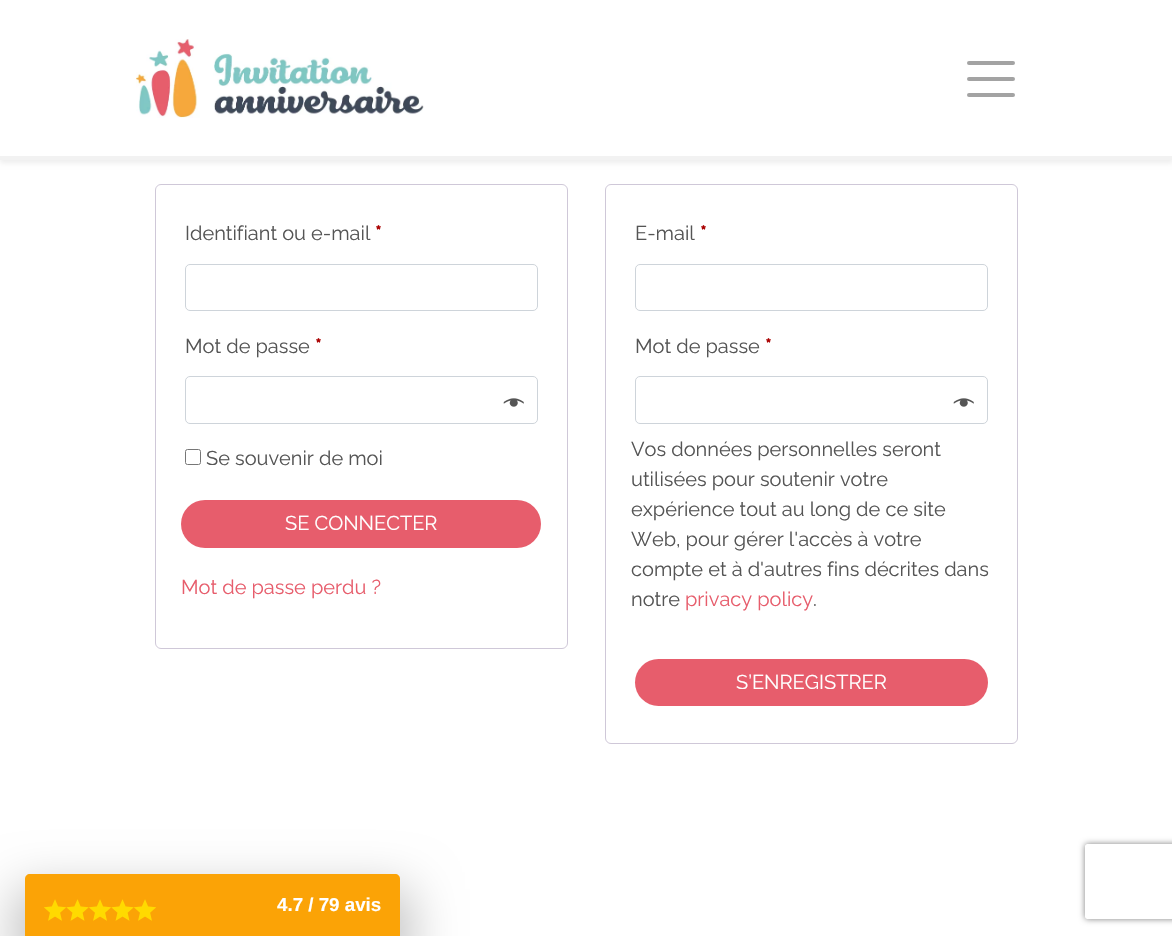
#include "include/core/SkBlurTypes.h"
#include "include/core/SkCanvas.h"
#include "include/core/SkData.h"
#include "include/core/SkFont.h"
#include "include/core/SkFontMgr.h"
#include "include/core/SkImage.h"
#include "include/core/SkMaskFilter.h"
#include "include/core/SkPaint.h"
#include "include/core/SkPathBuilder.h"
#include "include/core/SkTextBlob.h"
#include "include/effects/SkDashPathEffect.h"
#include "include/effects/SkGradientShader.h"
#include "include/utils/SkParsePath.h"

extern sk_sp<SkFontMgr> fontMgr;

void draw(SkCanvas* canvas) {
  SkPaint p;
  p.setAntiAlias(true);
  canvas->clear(SK_ColorWHITE);
  p.setColor(SkColorSetARGB(18, 0, 0, 0));
  p.setMaskFilter(SkMaskFilter::MakeBlur(kNormal_SkBlurStyle, 2.5f));
  canvas->drawRect(SkRect::MakeLTRB(0, 3, 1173, 163), p);
  p.setMaskFilter(nullptr);
  p.setColor(SK_ColorWHITE);
  canvas->drawRect(SkRect::MakeLTRB(0, 0, 1172, 156), p);
  p.setColor(SkColorSetRGB(242, 242, 242));
  canvas->drawRect(SkRect::MakeLTRB(0, 156, 1172, 160), p);
  canvas->drawImageRect(SkImages::DeferredFromEncodedData(SkData::MakeFromFileName("images/1.png")), SkRect::MakeLTRB(136, 39, 424, 118), SkSamplingOptions());
  p.setStyle(SkPaint::kStroke_Style);
  p.setStrokeWidth(4);
  p.setStrokeCap(SkPaint::kRound_Cap);
  p.setColor(SkColorSetRGB(163, 163, 163));
  canvas->drawPath(SkPathBuilder().moveTo(969, 63).lineTo(1013, 63).moveTo(969, 79).lineTo(1013, 79).moveTo(969, 95).lineTo(1013, 95).detach(), p);
  p.setStrokeWidth(1);
  p.setStrokeCap(SkPaint::kButt_Cap);
  p.setColor(SkColorSetRGB(207, 200, 216));
  canvas->drawRoundRect(SkRect::MakeLTRB(155.5f, 184.5f, 567.5f, 648.5f), 5.5f, 5.5f, p);
  p.setColor(SkColorSetRGB(206, 212, 218));
  canvas->drawRoundRect(SkRect::MakeLTRB(185.5f, 264.5f, 537.5f, 310.5f), 4.5f, 4.5f, p);
  canvas->drawRoundRect(SkRect::MakeLTRB(185.5f, 376.5f, 537.5f, 423.5f), 4.5f, 4.5f, p);
  canvas->drawImageRect(SkImages::DeferredFromEncodedData(SkData::MakeFromFileName("images/2.png")), SkRect::MakeLTRB(503, 398, 524, 407), SkSamplingOptions());
  p.setColor(SkColorSetRGB(118, 118, 118));
  canvas->drawRoundRect(SkRect::MakeLTRB(185.5f, 449.5f, 200.5f, 464.5f), 2, 2, p);
  p.setStyle(SkPaint::kFill_Style);
  p.setColor(SkColorSetRGB(231, 93, 108));
  canvas->drawRoundRect(SkRect::MakeLTRB(181, 500, 541, 548), 24, 24, p);
  p.setStyle(SkPaint::kStroke_Style);
  p.setColor(SkColorSetRGB(207, 200, 216));
  canvas->drawRoundRect(SkRect::MakeLTRB(605.5f, 184.5f, 1017.5f, 743.5f), 5.5f, 5.5f, p);
  p.setColor(SkColorSetRGB(206, 212, 218));
  canvas->drawRoundRect(SkRect::MakeLTRB(635.5f, 264.5f, 987.5f, 310.5f), 4.5f, 4.5f, p);
  canvas->drawRoundRect(SkRect::MakeLTRB(635.5f, 376.5f, 987.5f, 423.5f), 4.5f, 4.5f, p);
  canvas->drawImageRect(SkImages::DeferredFromEncodedData(SkData::MakeFromFileName("images/2.png")), SkRect::MakeLTRB(953, 398, 974, 407), SkSamplingOptions());
  p.setStyle(SkPaint::kFill_Style);
  p.setColor(SkColorSetRGB(231, 93, 108));
  canvas->drawRoundRect(SkRect::MakeLTRB(635, 659, 988, 706), 23.5f, 23.5f, p);
  p.setColor(SkColorSetARGB(64, 0, 0, 0));
  p.setMaskFilter(SkMaskFilter::MakeBlur(kNormal_SkBlurStyle, 25));
  canvas->drawRect(SkRect::MakeLTRB(15, 889, 410, 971), p);
  p.setMaskFilter(nullptr);
  p.setColor(SkColorSetRGB(251, 163, 6));
  canvas->drawPath(SkPathBuilder().moveTo(30, 874).lineTo(395, 874).cubicTo(398, 874, 400, 876, 400, 879).lineTo(400, 936).lineTo(25, 936).lineTo(25, 879).cubicTo(25, 876, 27, 874, 30, 874).close().detach(), p);
  canvas->drawImageRect(SkImages::DeferredFromEncodedData(SkData::MakeFromFileName("images/3.png")), SkRect::MakeLTRB(44, 899, 66, 921), SkSamplingOptions());
  canvas->drawImageRect(SkImages::DeferredFromEncodedData(SkData::MakeFromFileName("images/4.png")), SkRect::MakeLTRB(66, 899, 89, 921), SkSamplingOptions());
  canvas->drawImageRect(SkImages::DeferredFromEncodedData(SkData::MakeFromFileName("images/3.png")), SkRect::MakeLTRB(89, 899, 111, 921), SkSamplingOptions());
  canvas->drawImageRect(SkImages::DeferredFromEncodedData(SkData::MakeFromFileName("images/4.png")), SkRect::MakeLTRB(111, 899, 134, 921), SkSamplingOptions());
  canvas->drawImageRect(SkImages::DeferredFromEncodedData(SkData::MakeFromFileName("images/3.png")), SkRect::MakeLTRB(134, 899, 156, 921), SkSamplingOptions());
  canvas->save();
  canvas->clipPath(SkPathBuilder(SkPathFillType::kEvenOdd).moveTo(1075, 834).lineTo(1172, 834).lineTo(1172, 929).lineTo(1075, 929).close().moveTo(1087.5f, 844).lineTo(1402.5f, 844).cubicTo(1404, 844, 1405, 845, 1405, 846.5f).lineTo(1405, 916.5f).cubicTo(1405, 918, 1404, 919, 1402.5f, 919).lineTo(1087.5f, 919).cubicTo(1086, 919, 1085, 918, 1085, 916.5f).lineTo(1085, 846.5f).cubicTo(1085, 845, 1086, 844, 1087.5f, 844).close().detach(), true);
  p.setColor(SkColorSetRGB(128, 128, 128));
  p.setMaskFilter(SkMaskFilter::MakeBlur(kNormal_SkBlurStyle, 3));
  canvas->drawRoundRect(SkRect::MakeLTRB(1085, 844, 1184, 919), 2.5f, 2.5f, p);
  p.setMaskFilter(nullptr);
  canvas->restore();
  SkFont font1(fontMgr->matchFamilyStyle("Raleway", SkFontStyle(100, SkFontStyle::kNormal_Width, SkFontStyle::kUpright_Slant)), 20);
  font1.setSubpixel(true);
  p.setColor(SkColorSetRGB(85, 85, 85));
  canvas->drawString("Identifiant ou e-mail", 185, 240, font1, p);
  SkFont font2(fontMgr->matchFamilyStyle("Raleway", SkFontStyle::Bold()), 20);
  font2.setSubpixel(true);
  p.setColor(SkColorSetRGB(170, 0, 0));
  canvas->drawString("*", 375, 240, font2, p);
  p.setColor(SkColorSetRGB(85, 85, 85));
  canvas->drawString("Mot de passe", 185, 353, font1, p);
  p.setColor(SkColorSetRGB(170, 0, 0));
  canvas->drawString("*", 315, 353, font2, p);
  p.setColor(SkColorSetRGB(85, 85, 85));
  canvas->drawString("Se souvenir de moi", 206, 465, font1, p);
  p.setColor(SK_ColorWHITE);
  canvas->drawString("SE CONNECTER", 285, 530, font1, p);
  p.setColor(SkColorSetRGB(231, 93, 108));
  canvas->drawString("Mot de passe perdu ?", 181, 594, font1, p);
  p.setColor(SkColorSetRGB(85, 85, 85));
  canvas->drawString("E-mail", 635, 240, font1, p);
  p.setColor(SkColorSetRGB(170, 0, 0));
  canvas->drawString("*", 700, 240, font2, p);
  p.setColor(SkColorSetRGB(85, 85, 85));
  canvas->drawString("Mot de passe", 635, 353, font1, p);
  p.setColor(SkColorSetRGB(170, 0, 0));
  canvas->drawString("*", 765, 353, font2, p);
  p.setColor(SkColorSetRGB(85, 85, 85));
  canvas->drawString("Vos données personnelles seront", 631, 456, font1, p);
  canvas->drawString("utilisées pour soutenir votre", 631, 486, font1, p);
  canvas->drawString("expérience tout au long de ce site", 631, 516, font1, p);
  canvas->drawString("Web, pour gérer l'accès à votre", 631, 546, font1, p);
  canvas->drawString("compte et à d'autres fins décrites dans", 631, 576, font1, p);
  canvas->drawString("notre", 631, 606, font1, p);
  p.setColor(SkColorSetRGB(231, 93, 108));
  canvas->drawString("privacy policy", 685, 606, font1, p);
  p.setColor(SkColorSetRGB(85, 85, 85));
  canvas->drawString(".", 813, 606, font1, p);
  p.setColor(SK_ColorWHITE);
  canvas->drawString("S’ENREGISTRER", 736, 689, font1, p);
  SkFont font3(fontMgr->matchFamilyStyle("Liberation Sans", SkFontStyle::Bold()), 18.75f);
  font3.setSubpixel(true);
  canvas->drawString("4.7 / 79 avis", 277, 911, font3, p);
}
